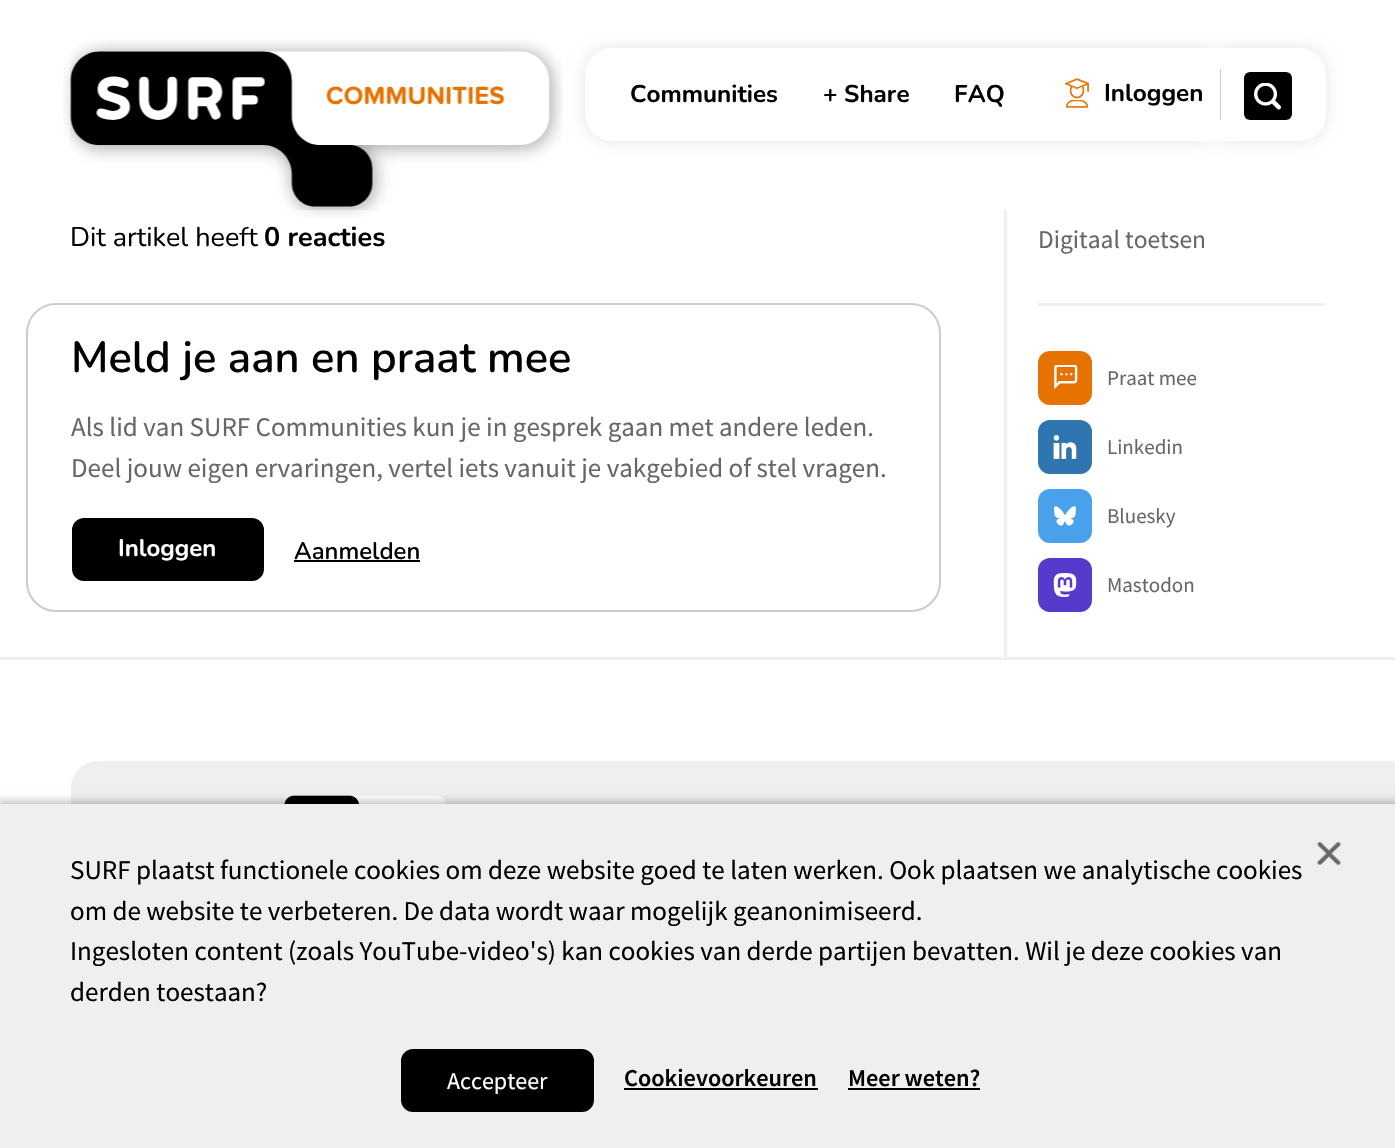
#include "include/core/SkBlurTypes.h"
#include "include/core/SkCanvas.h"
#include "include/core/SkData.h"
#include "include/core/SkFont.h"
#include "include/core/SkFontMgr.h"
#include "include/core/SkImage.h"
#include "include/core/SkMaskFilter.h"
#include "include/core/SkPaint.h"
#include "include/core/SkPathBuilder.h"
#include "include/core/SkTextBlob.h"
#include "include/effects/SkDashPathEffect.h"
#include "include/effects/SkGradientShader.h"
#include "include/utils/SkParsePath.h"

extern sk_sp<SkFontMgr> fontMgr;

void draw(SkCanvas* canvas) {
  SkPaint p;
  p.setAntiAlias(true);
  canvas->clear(SK_ColorWHITE);
  p.setColor(SkColorSetARGB(26, 0, 0, 0));
  p.setMaskFilter(SkMaskFilter::MakeBlur(kNormal_SkBlurStyle, 7.5f));
  canvas->drawRoundRect(SkRect::MakeLTRB(1206, 48, 1326, 141), 27, 27, p);
  p.setMaskFilter(nullptr);
  p.setColor(SK_ColorWHITE);
  canvas->drawPath(SkPathBuilder().moveTo(1206, 48).lineTo(1299, 48).cubicTo(1314, 48, 1326, 60, 1326, 75).lineTo(1326, 114).cubicTo(1326, 129, 1314, 141, 1299, 141).lineTo(1206, 141).close().detach(), p);
  p.setColor(SK_ColorBLACK);
  canvas->drawRoundRect(SkRect::MakeLTRB(1244, 72, 1292, 120), 6, 6, p);
  canvas->save();
  canvas->clipRect(SkRect::MakeLTRB(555, 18, 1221, 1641));
  p.setColor(SkColorSetARGB(26, 0, 0, 0));
  p.setMaskFilter(SkMaskFilter::MakeBlur(kNormal_SkBlurStyle, 7.5f));
  canvas->drawRoundRect(SkRect::MakeLTRB(585, 48, 1221, 141), 27, 27, p);
  p.setMaskFilter(nullptr);
  canvas->restore();
  canvas->drawImageRect(SkImages::DeferredFromEncodedData(SkData::MakeFromFileName("images/1.png")), SkRect::MakeLTRB(63, 39, 563, 218), SkSamplingOptions());
  p.setColor(SK_ColorWHITE);
  canvas->drawPath(SkPathBuilder().moveTo(612, 48).lineTo(1221, 48).lineTo(1221, 141).lineTo(612, 141).cubicTo(597, 141, 585, 129, 585, 114).lineTo(585, 75).cubicTo(585, 60, 597, 48, 612, 48).close().detach(), p);
  p.setColor(SkColorSetRGB(204, 204, 204));
  canvas->drawRect(SkRect::MakeLTRB(1220, 69, 1221, 120), p);
  canvas->drawImageRect(SkImages::DeferredFromEncodedData(SkData::MakeFromFileName("images/2.png")), SkRect::MakeLTRB(1065, 78, 1089, 108), SkSamplingOptions());
  canvas->drawImageRect(SkImages::DeferredFromEncodedData(SkData::MakeFromFileName("images/3.png")), SkRect::MakeLTRB(1254, 83, 1281, 110), SkSamplingOptions());
  p.setStyle(SkPaint::kStroke_Style);
  p.setStrokeWidth(2);
  canvas->drawRoundRect(SkRect::MakeLTRB(27, 304, 940, 611), 29, 29, p);
  p.setStyle(SkPaint::kFill_Style);
  p.setColor(SK_ColorBLACK);
  canvas->drawRoundRect(SkRect::MakeLTRB(73, 519, 263, 580), 11, 11, p);
  p.setStyle(SkPaint::kStroke_Style);
  canvas->drawRoundRect(SkRect::MakeLTRB(73, 519, 263, 580), 11, 11, p);
  p.setStyle(SkPaint::kFill_Style);
  canvas->drawRect(SkRect::MakeLTRB(294, 560, 420, 562), p);
  p.setColor(SkColorSetRGB(239, 239, 239));
  canvas->drawRect(SkRect::MakeLTRB(1004, 210, 1007, 657), p);
  canvas->drawRect(SkRect::MakeLTRB(1038, 303, 1325, 306), p);
  p.setColor(SkColorSetRGB(230, 115, 0));
  canvas->drawRoundRect(SkRect::MakeLTRB(1038, 351, 1092, 405), 12, 12, p);
  canvas->drawImageRect(SkImages::DeferredFromEncodedData(SkData::MakeFromFileName("images/4.png")), SkRect::MakeLTRB(1054, 365, 1078, 390), SkSamplingOptions());
  p.setColor(SkColorSetRGB(47, 118, 176));
  canvas->drawRoundRect(SkRect::MakeLTRB(1038, 420, 1092, 474), 12, 12, p);
  canvas->drawImageRect(SkImages::DeferredFromEncodedData(SkData::MakeFromFileName("images/5.png")), SkRect::MakeLTRB(1053, 435, 1077, 459), SkSamplingOptions());
  p.setColor(SkColorSetRGB(73, 160, 235));
  canvas->drawRoundRect(SkRect::MakeLTRB(1038, 489, 1092, 543), 12, 12, p);
  canvas->drawImageRect(SkImages::DeferredFromEncodedData(SkData::MakeFromFileName("images/6.png")), SkRect::MakeLTRB(1054, 506, 1076, 526), SkSamplingOptions());
  p.setColor(SkColorSetRGB(86, 58, 204));
  canvas->drawRoundRect(SkRect::MakeLTRB(1038, 558, 1092, 612), 12, 12, p);
  canvas->drawImageRect(SkImages::DeferredFromEncodedData(SkData::MakeFromFileName("images/7.png")), SkRect::MakeLTRB(1053, 573, 1077, 597), SkSamplingOptions());
  p.setColor(SkColorSetRGB(239, 239, 239));
  canvas->drawRect(SkRect::MakeLTRB(0, 657, 1395, 660), p);
  canvas->drawRect(SkRect::MakeLTRB(1326, 761, 1395, 804), p);
  canvas->drawPath(SkPathBuilder().moveTo(98, 761).lineTo(1326, 761).lineTo(1326, 1053).lineTo(71, 1053).lineTo(71, 788).cubicTo(71, 773, 83, 761, 98, 761).close().detach(), p);
  canvas->drawImageRect(SkImages::DeferredFromEncodedData(SkData::MakeFromFileName("images/8.png")), SkRect::MakeLTRB(284, 795, 447, 804), SkSamplingOptions());
  p.setColor(SkColorSetARGB(64, 0, 0, 0));
  p.setMaskFilter(SkMaskFilter::MakeBlur(kNormal_SkBlurStyle, 4));
  canvas->drawRect(SkRect::MakeLTRB(-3, 801, 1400, 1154), p);
  p.setMaskFilter(nullptr);
  p.setColor(SkColorSetRGB(239, 239, 239));
  canvas->drawRect(SkRect::MakeLTRB(0, 804, 1395, 1148), p);
  canvas->drawImageRect(SkImages::DeferredFromEncodedData(SkData::MakeFromFileName("images/9.png")), SkRect::MakeLTRB(1317, 841, 1341, 866), SkSamplingOptions());
  p.setColor(SK_ColorBLACK);
  canvas->drawRoundRect(SkRect::MakeLTRB(402, 1050, 593, 1111), 11, 11, p);
  p.setStyle(SkPaint::kStroke_Style);
  canvas->drawRoundRect(SkRect::MakeLTRB(402, 1050, 593, 1111), 11, 11, p);
  p.setStyle(SkPaint::kFill_Style);
  canvas->drawRect(SkRect::MakeLTRB(624, 1088, 818, 1090), p);
  canvas->drawRect(SkRect::MakeLTRB(848, 1088, 980, 1090), p);
  SkFont font1(fontMgr->matchFamilyStyle("Nunito", SkFontStyle::Bold()), 24.25f);
  font1.setSubpixel(true);
  canvas->drawString("Communities", 630, 102, font1, p);
  canvas->drawString("+ Share", 823, 102, font1, p);
  canvas->drawString("FAQ", 954, 102, font1, p);
  canvas->drawString("Inloggen", 1104, 101, font1, p);
  SkFont font2(fontMgr->matchFamilyStyle("Nunito", SkFontStyle::Normal()), 27);
  font2.setSubpixel(true);
  canvas->drawString("Dit artikel heeft", 70, 246, font2, p);
  SkFont font3(fontMgr->matchFamilyStyle("Nunito", SkFontStyle::Bold()), 27);
  font3.setSubpixel(true);
  canvas->drawString("0 reacties", 264, 246, font3, p);
  SkFont font4(fontMgr->matchFamilyStyle("Nunito", SkFontStyle(600, SkFontStyle::kNormal_Width, SkFontStyle::kUpright_Slant)), 43.5f);
  font4.setSubpixel(true);
  canvas->drawString("Meld je aan en praat mee", 71, 372, font4, p);
  SkFont font5(fontMgr->matchFamilyStyle("Source Sans Pro", SkFontStyle::Normal()), 27);
  font5.setSubpixel(true);
  p.setColor(SkColorSetRGB(103, 103, 103));
  canvas->drawString("Als lid van SURF Communities kun je in gesprek gaan met andere leden.", 71, 436, font5, p);
  canvas->drawString("Deel jouw eigen ervaringen, vertel iets vanuit je vakgebied of stel vragen.", 71, 477, font5, p);
  SkFont font6(fontMgr->matchFamilyStyle("Nunito", SkFontStyle::Bold()), 24);
  font6.setSubpixel(true);
  p.setColor(SK_ColorWHITE);
  canvas->drawString("Inloggen", 118, 556, font6, p);
  SkFont font7(fontMgr->matchFamilyStyle("Nunito", SkFontStyle(600, SkFontStyle::kNormal_Width, SkFontStyle::kUpright_Slant)), 24);
  font7.setSubpixel(true);
  p.setColor(SK_ColorBLACK);
  canvas->drawString("Aanmelden", 294, 559, font7, p);
  SkFont font8(fontMgr->matchFamilyStyle("Source Sans Pro", SkFontStyle::Normal()), 25.5f);
  font8.setSubpixel(true);
  p.setColor(SkColorSetRGB(103, 103, 103));
  canvas->drawString("Digitaal toetsen", 1038, 248, font8, p);
  SkFont font9(fontMgr->matchFamilyStyle("Source Sans Pro", SkFontStyle::Normal()), 21);
  font9.setSubpixel(true);
  canvas->drawString("Praat mee", 1107, 385, font9, p);
  canvas->drawString("Linkedin", 1107, 454, font9, p);
  canvas->drawString("Bluesky", 1107, 523, font9, p);
  canvas->drawString("Mastodon", 1107, 592, font9, p);
  p.setColor(SK_ColorBLACK);
  canvas->drawString("SURF plaatst functionele cookies om deze website goed te laten werken. Ook plaatsen we analytische cookies", 70, 879, font5, p);
  canvas->drawString("om de website te verbeteren. De data wordt waar mogelijk geanonimiseerd.", 70, 920, font5, p);
  canvas->drawString("Ingesloten content (zoals YouTube-video's) kan cookies van derde partijen bevatten. Wil je deze cookies van", 70, 960, font5, p);
  canvas->drawString("derden toestaan?", 70, 1001, font5, p);
  SkFont font10(fontMgr->matchFamilyStyle("Source Sans Pro", SkFontStyle::Normal()), 24);
  font10.setSubpixel(true);
  p.setColor(SK_ColorWHITE);
  canvas->drawString("Accepteer", 447, 1089, font10, p);
  SkFont font11(fontMgr->matchFamilyStyle("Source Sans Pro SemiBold", SkFontStyle(600, SkFontStyle::kNormal_Width, SkFontStyle::kUpright_Slant)), 24.25f);
  font11.setSubpixel(true);
  p.setColor(SK_ColorBLACK);
  canvas->drawString("Cookievoorkeuren", 624, 1086, font11, p);
  canvas->drawString("Meer weten?", 848, 1086, font11, p);
}
